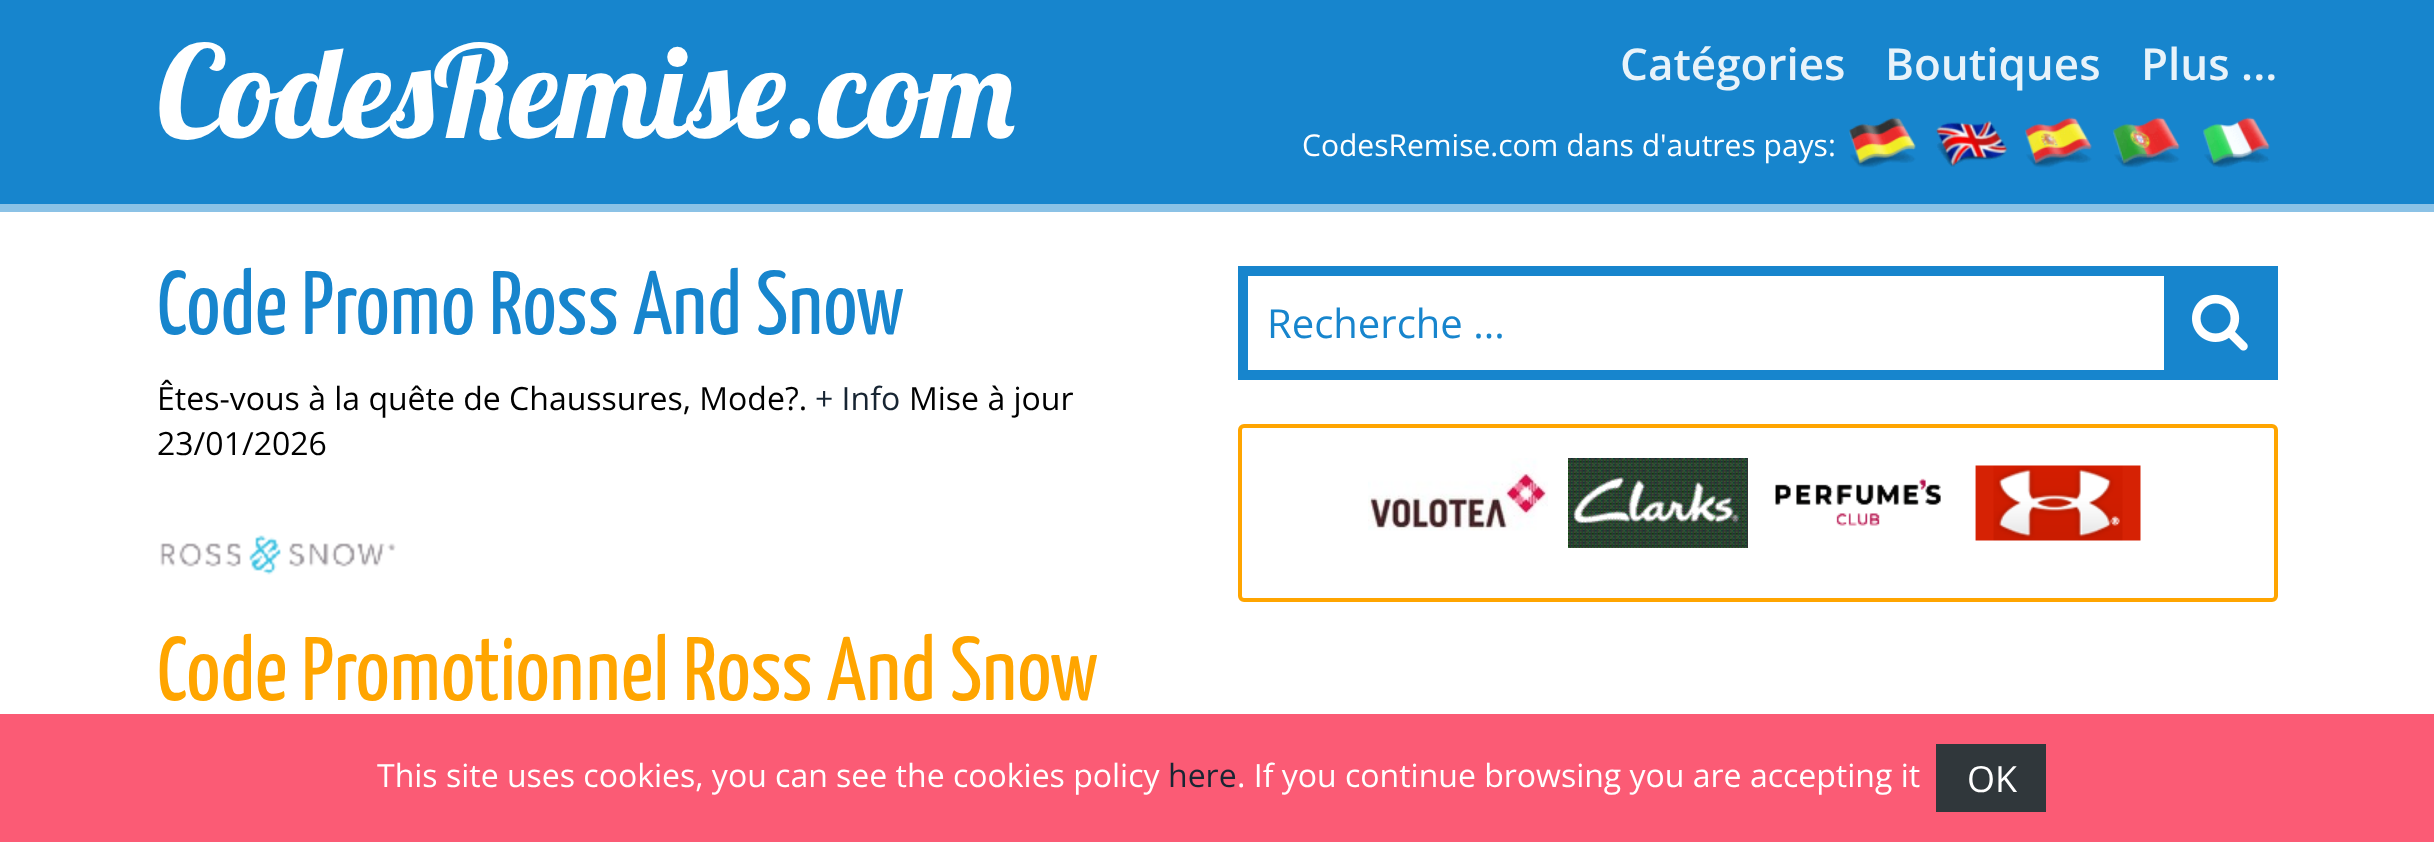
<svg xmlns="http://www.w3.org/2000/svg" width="2434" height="842">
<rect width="100%" height="100%" fill="#fff"/>
<rect y="204" width="2434" height="8" fill="#8bc2e6"/>
<rect width="2434" height="204" fill="#1785cd"/>
<text x="157" y="138" style="font-family:Lobster;font-size:128px;fill:#fff">CodesRemise.com</text>
<text x="1620" y="80" style="font-family:Open Sans;font-size:44px;font-weight:600;fill:#e8f3fa">Catégories</text>
<text x="1885" y="80" style="font-family:Open Sans;font-size:44px;font-weight:600;fill:#e8f3fa">Boutiques</text>
<text x="2141" y="80" style="font-family:Open Sans;font-size:44px;font-weight:600;fill:#e8f3fa">Plus ...</text>
<text x="1302" y="156" style="font-family:Open Sans;font-size:30px;fill:#fff">CodesRemise.com dans d'autres pays:</text>
<image x="1849" y="117" width="67" height="51" href="media/1.png"/>
<image x="1935" y="120" width="73" height="48" href="media/2.png"/>
<image x="2025" y="117" width="67" height="51" href="media/3.png"/>
<image x="2113" y="117" width="67" height="51" href="media/4.png"/>
<image x="2203" y="117" width="67" height="51" href="media/5.png"/>
<text x="157" y="334" style="font-family:Yanone Kaffeesatz;font-size:90px;fill:#1785cd">Code Promo Ross And Snow</text>
<text x="157" y="410" style="font-family:Open Sans;font-size:32px;fill:#000">Êtes-vous à la quête de Chaussures, Mode?.</text>
<text x="815" y="410" style="font-family:Open Sans;font-size:32px;fill:#172533">+ Info</text>
<text x="909" y="410" style="font-family:Open Sans;font-size:32px;fill:#000">Mise à jour</text>
<text x="157" y="455" style="font-family:Open Sans;font-size:32px;fill:#000">23/01/2026</text>
<image x="160" y="535" width="236" height="40" href="media/6.png"/>
<text x="157" y="700" style="font-family:Yanone Kaffeesatz;font-size:90px;fill:#ffa500">Code Promotionnel Ross And Snow</text>
<rect x="1238" y="266" width="1040" height="114" fill="#1785cd"/>
<rect x="1248" y="276" width="916" height="94" fill="#fff"/>
<text x="1267" y="338" style="font-family:Open Sans;font-size:40px;fill:#1785cd">Recherche ...</text>
<image x="2192" y="294" width="56" height="57" href="media/7.png"/>
<rect x="1240" y="426" width="1036" height="174" rx="4" fill="none" stroke="#ffa500" stroke-width="4"/>
<image x="1368" y="458" width="180" height="73" href="media/8.png"/>
<image x="1568" y="458" width="180" height="90" href="media/9.png"/>
<image x="1775" y="478" width="166" height="48" href="media/10.png"/>
<image x="1975" y="465" width="166" height="76" href="media/11.png"/>
<rect y="714" width="2434" height="128" fill="#fb5b75"/>
<text x="377" y="787" style="font-family:Open Sans;font-size:32px;fill:#fff">This site uses cookies, you can see the cookies policy</text>
<text x="1168" y="787" style="font-family:Open Sans;font-size:32px;fill:#172533">here</text>
<text x="1237" y="787" style="font-family:Open Sans;font-size:32px;fill:#fff">. If you continue browsing you are accepting it</text>
<rect x="1936" y="744" width="110" height="68" fill="#30373b"/>
<text x="1967" y="792" style="font-family:Open Sans;font-size:36px;fill:#fff">OK</text>
</svg>
